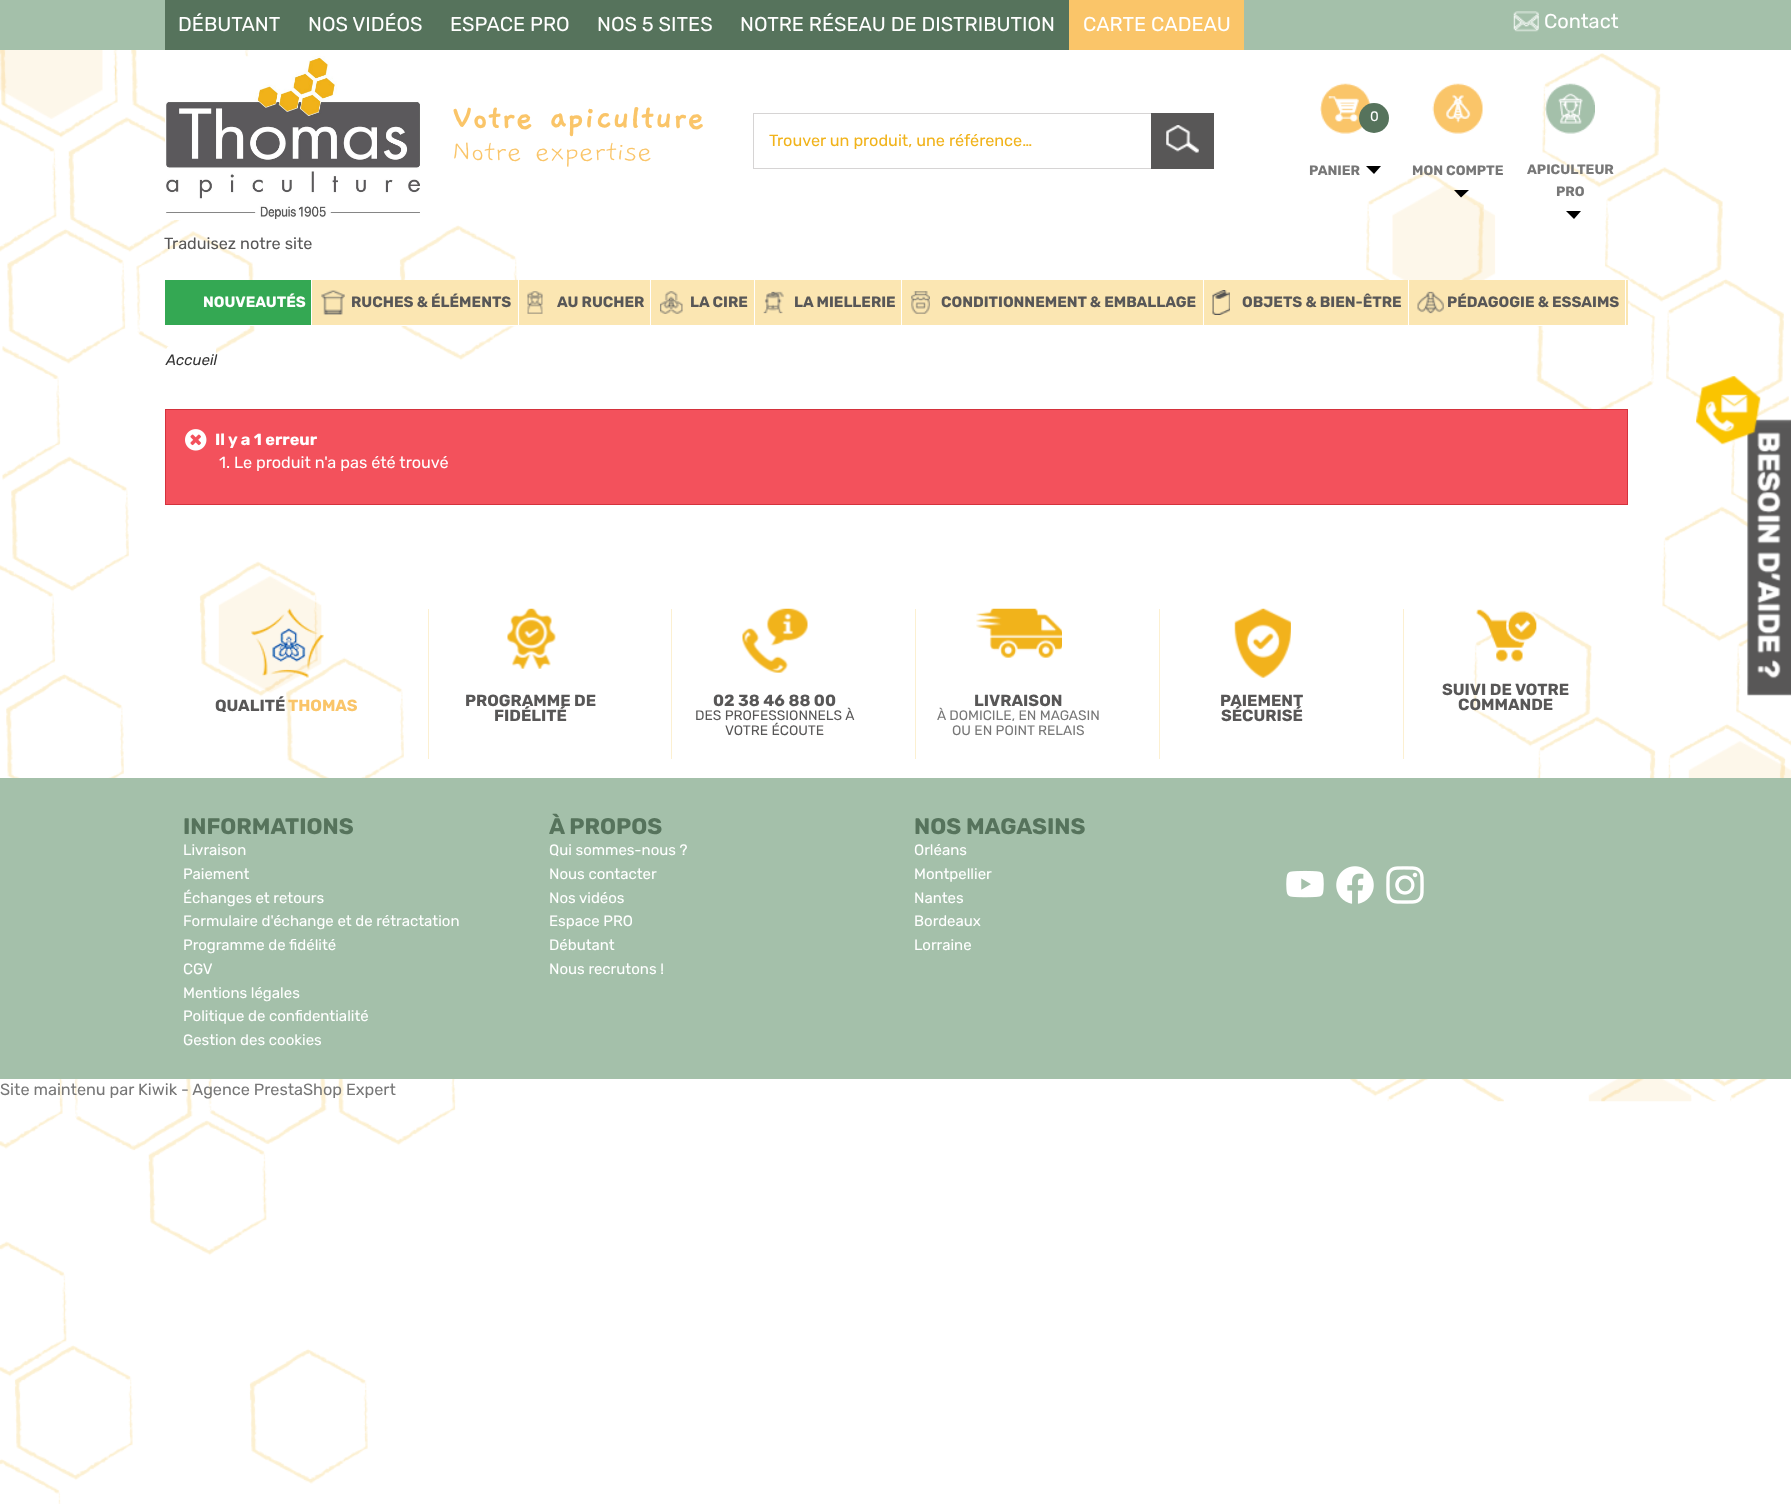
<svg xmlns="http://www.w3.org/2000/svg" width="1791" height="1504">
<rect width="100%" height="100%" fill="#fff"/>
<image x="0" y="50" width="518" height="1454" href="media/1.png"/>
<rect width="1791" height="50" fill="#a4c0aa"/>
<rect x="165" width="904" height="50" fill="#56735c"/>
<text x="178" y="31" style="font-family:Rubik;font-size:20px;fill:#fff">DÉBUTANT</text>
<text x="308" y="31" style="font-family:Rubik;font-size:20px;fill:#fff">NOS VIDÉOS</text>
<text x="450" y="31" style="font-family:Rubik;font-size:20px;fill:#fff">ESPACE PRO</text>
<text x="597" y="31" style="font-family:Rubik;font-size:20px;fill:#fff">NOS 5 SITES</text>
<text x="740" y="31" style="font-family:Rubik;font-size:20px;fill:#fff">NOTRE RÉSEAU DE DISTRIBUTION</text>
<rect x="1069" width="175" height="50" fill="#fac569"/>
<text x="1083" y="31" style="font-family:Rubik;font-size:20px;fill:#fff">CARTE CADEAU</text>
<image x="1513" y="11" width="26" height="21" href="media/2.png"/>
<text x="1544" y="28" style="font-family:Rubik;font-size:20px;fill:#fff">Contact</text>
<image x="1350" y="53" width="441" height="1049" href="media/3.png"/>
<image x="165" y="56" width="255" height="164" href="media/4.png"/>
<text x="452" y="128" style="font-family:Gaegu;font-size:37.5px;font-weight:bold;fill:#fac569">Votre apiculture</text>
<text x="452" y="160" style="font-family:Gaegu;font-size:31.25px;font-weight:300;fill:#fac569">Notre expertise</text>
<rect x="753.5" y="113.5" width="460" height="55" fill="none" stroke="#d6d4d4"/>
<text x="769" y="146" style="font-family:Rubik;font-size:16.25px;fill:#f1b31b">Trouver un produit, une référence…</text>
<rect x="1151" y="113" width="63" height="56" fill="#585757"/>
<image x="1166" y="125" width="33" height="28" href="media/5.png"/>
<image x="1320" y="83" width="50" height="51" href="media/6.png"/>
<circle cx="1374" cy="118" r="15" fill="#56735c"/>
<text x="1370" y="121" style="font-family:Rubik;font-size:13.75px;fill:#fff">0</text>
<text x="1309" y="175" style="font-family:Rubik;font-size:13.75px;font-weight:bold;fill:#777">PANIER</text>
<path d="M1366 166h15l-7 8z" fill="#000"/>
<image x="1432" y="83" width="51" height="51" href="media/7.png"/>
<text x="1412" y="175" style="font-family:Rubik;font-size:13.75px;font-weight:bold;fill:#777">MON COMPTE</text>
<path d="M1454 190h15l-8 7.5z" fill="#000"/>
<image x="1545" y="83" width="50" height="51" href="media/8.png"/>
<text x="1527" y="174" style="font-family:Rubik;font-size:13.75px;font-weight:bold;fill:#777">APICULTEUR</text>
<text x="1556" y="196" style="font-family:Rubik;font-size:13.75px;font-weight:bold;fill:#777">PRO</text>
<path d="M1566 211h15l-7 8z" fill="#000"/>
<text x="164" y="249" style="font-family:Rubik;font-size:16.25px;fill:#585757">Traduisez notre site</text>
<rect x="249" y="325" width="1294" height="1" fill="#fff"/>
<rect x="312" y="280" width="1316" height="45" fill="#fbe6b2"/>
<rect x="165" y="280" width="146" height="45" fill="#34a853"/>
<text x="203" y="307" style="font-family:Rubik;font-size:15px;font-weight:bold;fill:#fff">NOUVEAUTÉS</text>
<rect x="518" y="280" width="1" height="45" fill="#fff"/>
<image x="321" y="290" width="24" height="25" href="media/9.png"/>
<text x="351" y="307" style="font-family:Rubik;font-size:15px;font-weight:bold;fill:#585757">RUCHES &amp; ÉLÉMENTS</text>
<rect x="650" y="280" width="1" height="45" fill="#fff"/>
<image x="527" y="291" width="16" height="23" href="media/10.png"/>
<text x="557" y="307" style="font-family:Rubik;font-size:15px;font-weight:bold;fill:#585757">AU RUCHER</text>
<rect x="754" y="280" width="1" height="45" fill="#fff"/>
<image x="660" y="291" width="23" height="23" href="media/11.png"/>
<text x="690" y="307" style="font-family:Rubik;font-size:15px;font-weight:bold;fill:#585757">LA CIRE</text>
<rect x="901" y="280" width="1" height="45" fill="#fff"/>
<image x="763" y="291" width="21" height="23" href="media/12.png"/>
<text x="794" y="307" style="font-family:Rubik;font-size:15px;font-weight:bold;fill:#585757">LA MIELLERIE</text>
<rect x="1203" y="280" width="1" height="45" fill="#fff"/>
<image x="911" y="291" width="19" height="23" href="media/13.png"/>
<text x="941" y="307" style="font-family:Rubik;font-size:15px;font-weight:bold;fill:#585757">CONDITIONNEMENT &amp; EMBALLAGE</text>
<rect x="1408" y="280" width="1" height="45" fill="#fff"/>
<image x="1212" y="290" width="18" height="25" href="media/14.png"/>
<text x="1242" y="307" style="font-family:Rubik;font-size:15px;font-weight:bold;fill:#585757">OBJETS &amp; BIEN-ÊTRE</text>
<rect x="1625" y="280" width="1" height="45" fill="#fff"/>
<image x="1417" y="291" width="27" height="23" href="media/15.png"/>
<text x="1447" y="307" style="font-family:Rubik;font-size:15px;font-weight:bold;fill:#585757">PÉDAGOGIE &amp; ESSAIMS</text>
<path d="M170 346h46v32h-46c-2 0-4-2-4-4v-24c0-2 2-4 4-4z" fill="#fff"/>
<text x="166" y="365" style="font-family:Rubik;font-size:15px;font-weight:300;font-style:italic;fill:#333">Accueil</text>
<rect x="165.5" y="409.5" width="1462" height="95" fill="#f3515c" stroke="#d4323d"/>
<image x="185" y="429" width="22" height="22" href="media/16.png"/>
<text x="215" y="445" style="font-family:Rubik;font-size:16.25px;font-weight:bold;fill:#fff">Il y a 1 erreur</text>
<text x="219" y="468" style="font-family:Rubik;font-size:16.25px;fill:#fff">1. Le produit n'a pas été trouvé</text>
<image x="1747" y="419" width="44" height="277" href="media/18.png"/>
<image x="1696" y="376" width="65" height="69" href="media/17.png"/>
<image x="251" y="608" width="73" height="70" href="media/19.png"/>
<text x="215" y="711" style="font-family:Rubik;font-size:16.25px;font-weight:bold;fill:#585757">QUALITÉ</text>
<text x="288" y="711" style="font-family:Rubik;font-size:16.25px;font-weight:bold;fill:#fac569">THOMAS</text>
<rect x="428" y="609" width="1" height="150" fill="#fcf0d1"/>
<image x="507" y="608" width="49" height="61" href="media/20.png"/>
<text x="465" y="706" style="font-family:Rubik;font-size:16.25px;font-weight:bold;fill:#585757">PROGRAMME DE</text>
<text x="494" y="721" style="font-family:Rubik;font-size:16.25px;font-weight:bold;fill:#585757">FIDÉLITÉ</text>
<rect x="671" y="609" width="1" height="150" fill="#fcf0d1"/>
<image x="742" y="608" width="66" height="65" href="media/21.png"/>
<text x="713" y="706" style="font-family:Rubik;font-size:16.25px;font-weight:bold;fill:#585757">02 38 46 88 00</text>
<text x="695" y="720" style="font-family:Rubik;font-size:13.75px;fill:#585757">DES PROFESSIONNELS À</text>
<text x="725" y="735" style="font-family:Rubik;font-size:13.75px;fill:#585757">VOTRE ÉCOUTE</text>
<rect x="915" y="609" width="1" height="150" fill="#fcf0d1"/>
<image x="976" y="608" width="86" height="50" href="media/22.png"/>
<text x="974" y="706" style="font-family:Rubik;font-size:16.25px;font-weight:bold;fill:#585757">LIVRAISON</text>
<text x="937" y="720" style="font-family:Rubik;font-size:13.75px;fill:#777">À DOMICILE, EN MAGASIN</text>
<text x="952" y="735" style="font-family:Rubik;font-size:13.75px;fill:#777">OU EN POINT RELAIS</text>
<rect x="1159" y="609" width="1" height="150" fill="#fcf0d1"/>
<image x="1234" y="608" width="57" height="70" href="media/23.png"/>
<text x="1220" y="706" style="font-family:Rubik;font-size:16.25px;font-weight:bold;fill:#585757">PAIEMENT</text>
<text x="1221" y="721" style="font-family:Rubik;font-size:16.25px;font-weight:bold;fill:#585757">SÉCURISÉ</text>
<rect x="1403" y="609" width="1" height="150" fill="#fcf0d1"/>
<image x="1476" y="609" width="62" height="53" href="media/24.png"/>
<text x="1442" y="695" style="font-family:Rubik;font-size:16.25px;font-weight:bold;fill:#585757">SUIVI DE VOTRE</text>
<text x="1458" y="710" style="font-family:Rubik;font-size:16.25px;font-weight:bold;fill:#585757">COMMANDE</text>
<rect y="778" width="1791" height="301" fill="#a4c0aa"/>
<text x="183" y="834" style="font-family:Rubik;font-size:22.5px;font-weight:bold;fill:#56735c">INFORMATIONS</text>
<text x="183" y="855" style="font-family:Rubik;font-size:15px;fill:#fff">Livraison</text>
<text x="183" y="879" style="font-family:Rubik;font-size:15px;fill:#fff">Paiement</text>
<text x="183" y="903" style="font-family:Rubik;font-size:15px;fill:#fff">Échanges et retours</text>
<text x="183" y="926" style="font-family:Rubik;font-size:15px;fill:#fff">Formulaire d'échange et de rétractation</text>
<text x="183" y="950" style="font-family:Rubik;font-size:15px;fill:#fff">Programme de fidélité</text>
<text x="183" y="974" style="font-family:Rubik;font-size:15px;fill:#fff">CGV</text>
<text x="183" y="998" style="font-family:Rubik;font-size:15px;fill:#fff">Mentions légales</text>
<text x="183" y="1021" style="font-family:Rubik;font-size:15px;fill:#fff">Politique de confidentialité</text>
<text x="183" y="1045" style="font-family:Rubik;font-size:15px;fill:#fff">Gestion des cookies</text>
<text x="549" y="834" style="font-family:Rubik;font-size:22.5px;font-weight:bold;fill:#56735c">À PROPOS</text>
<text x="549" y="855" style="font-family:Rubik;font-size:15px;fill:#fff">Qui sommes-nous ?</text>
<text x="549" y="879" style="font-family:Rubik;font-size:15px;fill:#fff">Nous contacter</text>
<text x="549" y="903" style="font-family:Rubik;font-size:15px;fill:#fff">Nos vidéos</text>
<text x="549" y="926" style="font-family:Rubik;font-size:15px;fill:#fff">Espace PRO</text>
<text x="549" y="950" style="font-family:Rubik;font-size:15px;fill:#fff">Débutant</text>
<text x="549" y="974" style="font-family:Rubik;font-size:15px;fill:#fff">Nous recrutons !</text>
<text x="914" y="834" style="font-family:Rubik;font-size:22.5px;font-weight:bold;fill:#56735c">NOS MAGASINS</text>
<text x="914" y="855" style="font-family:Rubik;font-size:15px;fill:#fff">Orléans</text>
<text x="914" y="879" style="font-family:Rubik;font-size:15px;fill:#fff">Montpellier</text>
<text x="914" y="903" style="font-family:Rubik;font-size:15px;fill:#fff">Nantes</text>
<text x="914" y="926" style="font-family:Rubik;font-size:15px;fill:#fff">Bordeaux</text>
<text x="914" y="950" style="font-family:Rubik;font-size:15px;fill:#fff">Lorraine</text>
<image x="1286" y="870" width="38" height="28" href="media/25.png"/>
<image x="1336" y="866" width="38" height="38" href="media/26.png"/>
<image x="1386" y="866" width="38" height="38" href="media/27.png"/>
<text x="0" y="1095" style="font-family:Rubik;font-size:16.25px;fill:#777">Site maintenu par Kiwik - Agence PrestaShop Expert</text>
</svg>
